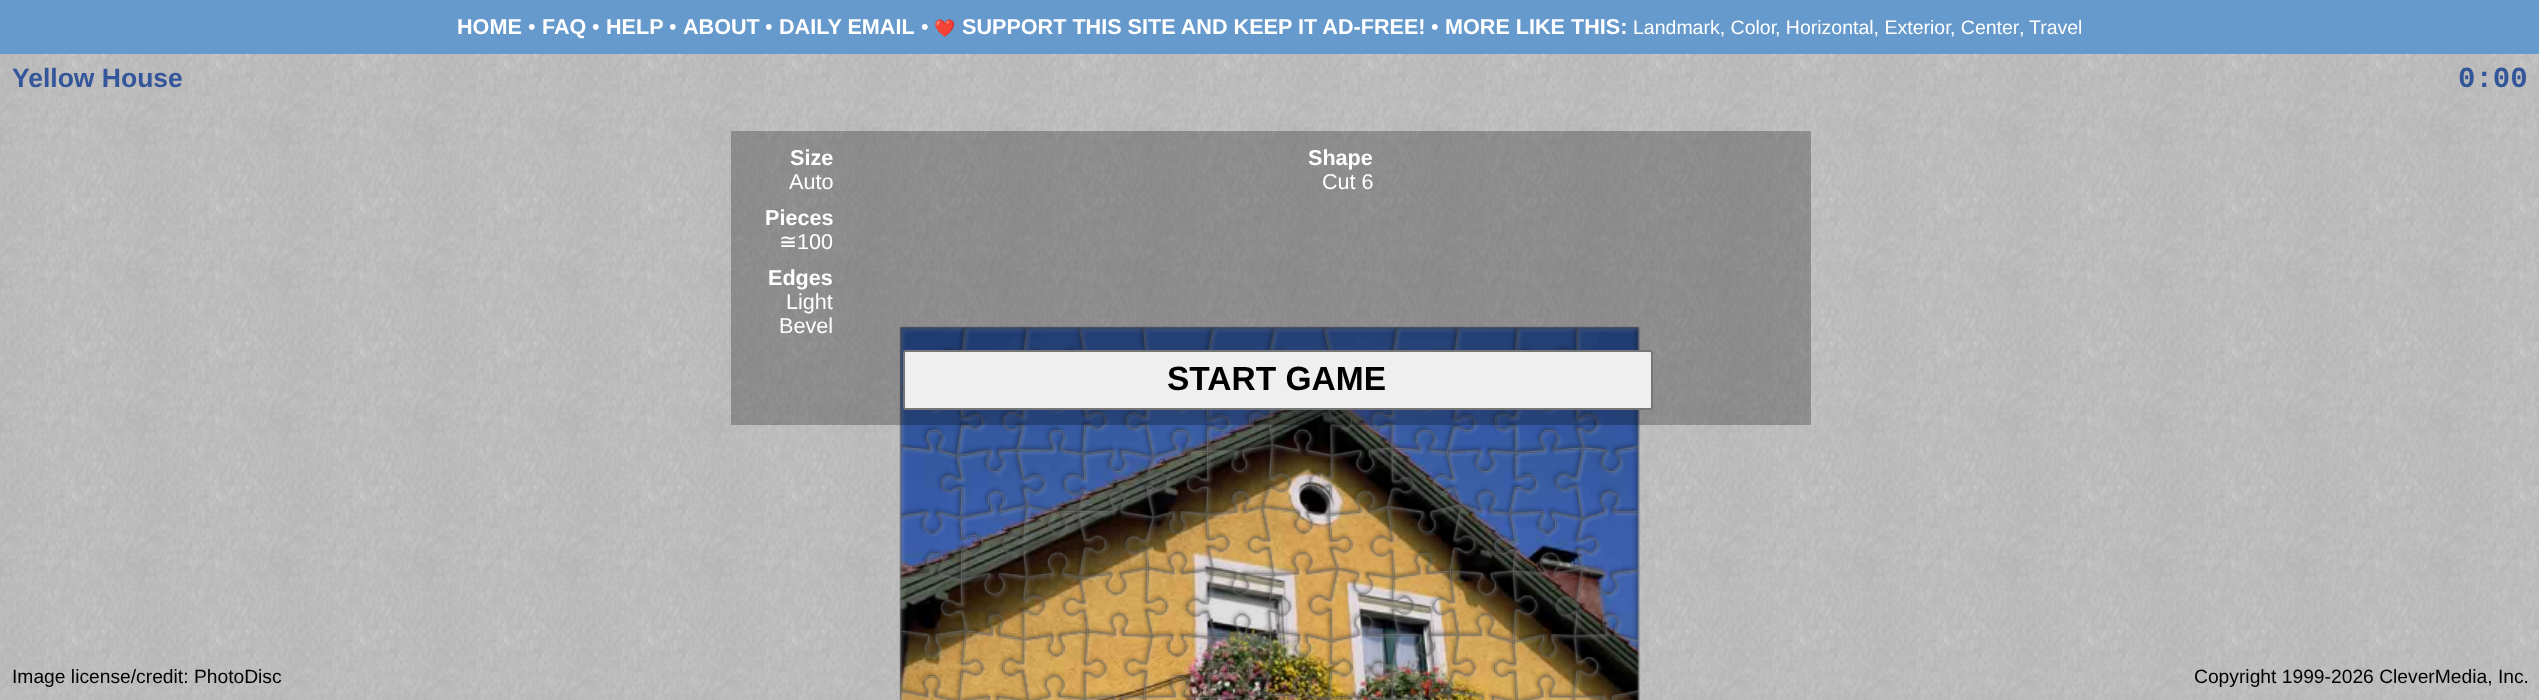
<svg xmlns="http://www.w3.org/2000/svg" width="2539" height="700">
<rect width="100%" height="100%" fill="#69c"/>
<text x="457" y="34" style="font-family:Liberation Sans;font-size:21.6px;font-weight:bold;fill:#fff">HOME</text>
<text x="528" y="34" style="font-family:Liberation Sans;font-size:21.6px;fill:#fff">•</text>
<text x="542" y="34" style="font-family:Liberation Sans;font-size:21.6px;font-weight:bold;fill:#fff">FAQ</text>
<text x="592" y="34" style="font-family:Liberation Sans;font-size:21.6px;fill:#fff">•</text>
<text x="606" y="34" style="font-family:Liberation Sans;font-size:21.6px;font-weight:bold;fill:#fff">HELP</text>
<text x="669" y="34" style="font-family:Liberation Sans;font-size:21.6px;fill:#fff">•</text>
<text x="683" y="34" style="font-family:Liberation Sans;font-size:21.6px;font-weight:bold;fill:#fff">ABOUT</text>
<text x="765" y="34" style="font-family:Liberation Sans;font-size:21.6px;fill:#fff">•</text>
<text x="779" y="34" style="font-family:Liberation Sans;font-size:21.6px;font-weight:bold;fill:#fff">DAILY EMAIL</text>
<text x="921" y="34" style="font-family:Liberation Sans;font-size:21.6px;fill:#fff">•</text>
<text x="934" y="34" style="font-family:Noto Color Emoji;font-size:17px;fill:#fff">❤️</text>
<text x="962" y="34" style="font-family:Liberation Sans;font-size:21.6px;font-weight:bold;fill:#fff">SUPPORT THIS SITE AND KEEP IT AD-FREE!</text>
<text x="1431" y="34" style="font-family:Liberation Sans;font-size:21.6px;fill:#fff">•</text>
<text x="1445" y="34" style="font-family:Liberation Sans;font-size:21.6px;font-weight:bold;fill:#fff">MORE LIKE THIS:</text>
<text x="1633" y="34" style="font-family:Liberation Sans;font-size:19.5px;fill:#fff">Landmark, Color</text>
<text x="1775" y="34" style="font-family:Liberation Sans;font-size:19.5px;fill:#fff">, Horizontal, Exterior</text>
<text x="1950" y="34" style="font-family:Liberation Sans;font-size:19.5px;fill:#fff">, Center</text>
<text x="2029" y="34" style="font-family:Liberation Sans;font-size:19.5px;fill:#fff">Travel</text>
<text x="2019" y="34" style="font-family:Liberation Sans;font-size:19.5px;fill:#fff">,</text>
<image x="0" y="54" width="2539" height="646" href="media/1.png"/>
<image x="899" y="326" width="68" height="66" href="media/2.png"/>
<image x="961" y="326" width="67" height="24" href="media/3.png"/>
<image x="1023" y="326" width="62" height="24" href="media/4.png"/>
<image x="1078" y="326" width="69" height="24" href="media/5.png"/>
<image x="1143" y="326" width="71" height="24" href="media/6.png"/>
<image x="1208" y="326" width="68" height="24" href="media/7.png"/>
<image x="1270" y="326" width="61" height="24" href="media/8.png"/>
<image x="1323" y="326" width="76" height="24" href="media/9.png"/>
<image x="1393" y="326" width="67" height="24" href="media/10.png"/>
<image x="1454" y="326" width="65" height="24" href="media/11.png"/>
<image x="1515" y="326" width="64" height="24" href="media/12.png"/>
<image x="1561" y="326" width="79" height="24" href="media/13.png"/>
<image x="899" y="389" width="84" height="68" href="media/14.png"/>
<image x="956" y="410" width="69" height="61" href="media/15.png"/>
<image x="1002" y="410" width="104" height="45" href="media/16.png"/>
<image x="1082" y="410" width="72" height="61" href="media/17.png"/>
<image x="1125" y="410" width="104" height="48" href="media/18.png"/>
<image x="1207" y="410" width="66" height="61" href="media/19.png"/>
<image x="1248" y="410" width="104" height="47" href="media/20.png"/>
<image x="1328" y="410" width="66" height="61" href="media/21.png"/>
<image x="1371" y="410" width="104" height="44" href="media/22.png"/>
<image x="1446" y="410" width="73" height="61" href="media/23.png"/>
<image x="1494" y="410" width="104" height="44" href="media/24.png"/>
<image x="1576" y="410" width="64" height="61" href="media/25.png"/>
<image x="899" y="429" width="65" height="104" href="media/26.png"/>
<image x="940" y="450" width="104" height="70" href="media/27.png"/>
<image x="1017" y="429" width="70" height="104" href="media/28.png"/>
<image x="1063" y="450" width="104" height="68" href="media/29.png"/>
<image x="1146" y="429" width="64" height="104" href="media/30.png"/>
<image x="1186" y="444" width="104" height="71" href="media/31.png"/>
<image x="1262" y="429" width="71" height="104" href="media/32.png"/>
<image x="1309" y="447" width="104" height="69" href="media/33.png"/>
<image x="1387" y="429" width="76" height="104" href="media/34.png"/>
<image x="1432" y="449" width="104" height="66" href="media/35.png"/>
<image x="1509" y="429" width="76" height="104" href="media/36.png"/>
<image x="1555" y="445" width="85" height="75" href="media/37.png"/>
<image x="899" y="511" width="84" height="70" href="media/38.png"/>
<image x="960" y="491" width="68" height="103" href="media/39.png"/>
<image x="1002" y="505" width="104" height="73" href="media/40.png"/>
<image x="1077" y="490" width="77" height="104" href="media/41.png"/>
<image x="1125" y="511" width="104" height="64" href="media/42.png"/>
<image x="1206" y="490" width="68" height="104" href="media/43.png"/>
<image x="1248" y="507" width="104" height="69" href="media/44.png"/>
<image x="1329" y="490" width="67" height="104" href="media/45.png"/>
<image x="1371" y="504" width="104" height="76" href="media/46.png"/>
<image x="1449" y="490" width="68" height="104" href="media/47.png"/>
<image x="1494" y="511" width="104" height="64" href="media/48.png"/>
<image x="1576" y="490" width="64" height="104" href="media/49.png"/>
<image x="899" y="552" width="68" height="104" href="media/50.png"/>
<image x="940" y="573" width="104" height="68" href="media/51.png"/>
<image x="1023" y="552" width="65" height="104" href="media/52.png"/>
<image x="1063" y="568" width="104" height="69" href="media/53.png"/>
<image x="1145" y="552" width="71" height="104" href="media/54.png"/>
<image x="1186" y="568" width="104" height="72" href="media/55.png"/>
<image x="1268" y="552" width="71" height="104" href="media/56.png"/>
<image x="1309" y="568" width="104" height="75" href="media/57.png"/>
<image x="1391" y="552" width="69" height="104" href="media/58.png"/>
<image x="1432" y="570" width="104" height="73" href="media/59.png"/>
<image x="1513" y="552" width="70" height="104" href="media/60.png"/>
<image x="1555" y="567" width="85" height="76" href="media/61.png"/>
<image x="899" y="630" width="84" height="70" href="media/62.png"/>
<image x="958" y="613" width="72" height="87" href="media/63.png"/>
<image x="1002" y="631" width="104" height="69" href="media/64.png"/>
<image x="1084" y="613" width="69" height="87" href="media/65.png"/>
<image x="1125" y="634" width="104" height="66" href="media/66.png"/>
<image x="1207" y="613" width="64" height="87" href="media/67.png"/>
<image x="1248" y="631" width="104" height="69" href="media/68.png"/>
<image x="1328" y="613" width="72" height="87" href="media/69.png"/>
<image x="1371" y="634" width="104" height="66" href="media/70.png"/>
<image x="1447" y="613" width="72" height="87" href="media/71.png"/>
<image x="1494" y="634" width="104" height="66" href="media/72.png"/>
<image x="1573" y="613" width="67" height="87" href="media/73.png"/>
<image x="899" y="675" width="53" height="25" href="media/74.png"/>
<image x="966" y="695" width="53" height="5" href="media/75.png"/>
<image x="1036" y="675" width="51" height="25" href="media/76.png"/>
<image x="1084" y="695" width="61" height="5" href="media/77.png"/>
<image x="1144" y="675" width="67" height="25" href="media/78.png"/>
<image x="1209" y="693" width="56" height="7" href="media/79.png"/>
<image x="1263" y="675" width="67" height="25" href="media/80.png"/>
<image x="1328" y="695" width="65" height="5" href="media/81.png"/>
<image x="1391" y="675" width="60" height="25" href="media/82.png"/>
<image x="1447" y="690" width="61" height="10" href="media/83.png"/>
<image x="1526" y="675" width="50" height="25" href="media/84.png"/>
<image x="1573" y="690" width="67" height="10" href="media/85.png"/>
<text x="12" y="87" style="font-family:Liberation Sans;font-size:26.5px;font-weight:bold;fill:#359">Yellow House</text>
<text x="2458" y="87" style="font-family:Liberation Mono;font-size:29px;font-weight:bold;fill:#359">0:00</text>
<rect x="731" y="131" width="1080" height="294" fill="#00000040"/>
<text x="790" y="165" style="font-family:Liberation Sans;font-size:21.6px;font-weight:bold;fill:#fff">Size</text>
<text x="789" y="189" style="font-family:Liberation Sans;font-size:21.6px;fill:#fff">Auto</text>
<text x="765" y="225" style="font-family:Liberation Sans;font-size:21.6px;font-weight:bold;fill:#fff">Pieces</text>
<text x="779" y="249" style="font-family:DejaVu Sans;font-size:21.6px;fill:#fff">≅</text>
<text x="797" y="249" style="font-family:Liberation Sans;font-size:21.6px;fill:#fff">100</text>
<text x="768" y="285" style="font-family:Liberation Sans;font-size:21.6px;font-weight:bold;fill:#fff">Edges</text>
<text x="786" y="309" style="font-family:Liberation Sans;font-size:21.6px;fill:#fff">Light</text>
<text x="779" y="333" style="font-family:Liberation Sans;font-size:21.6px;fill:#fff">Bevel</text>
<text x="1308" y="165" style="font-family:Liberation Sans;font-size:21.6px;font-weight:bold;fill:#fff">Shape</text>
<text x="1322" y="189" style="font-family:Liberation Sans;font-size:21.6px;fill:#fff">Cut 6</text>
<rect x="904" y="351" width="748" height="58" rx="2" fill="#efefef" stroke="#767676" stroke-width="2"/>
<text x="1167" y="390" style="font-family:Liberation Sans;font-size:33.5px;font-weight:bold;fill:#000">START GAME</text>
<text x="12" y="683" style="font-family:Liberation Sans;font-size:19.25px;fill:#000">Image license/credit: PhotoDisc</text>
<text x="2194" y="683" style="font-family:Liberation Sans;font-size:19.25px;fill:#000">Copyright 1999-2026 CleverMedia, Inc.</text>
</svg>
